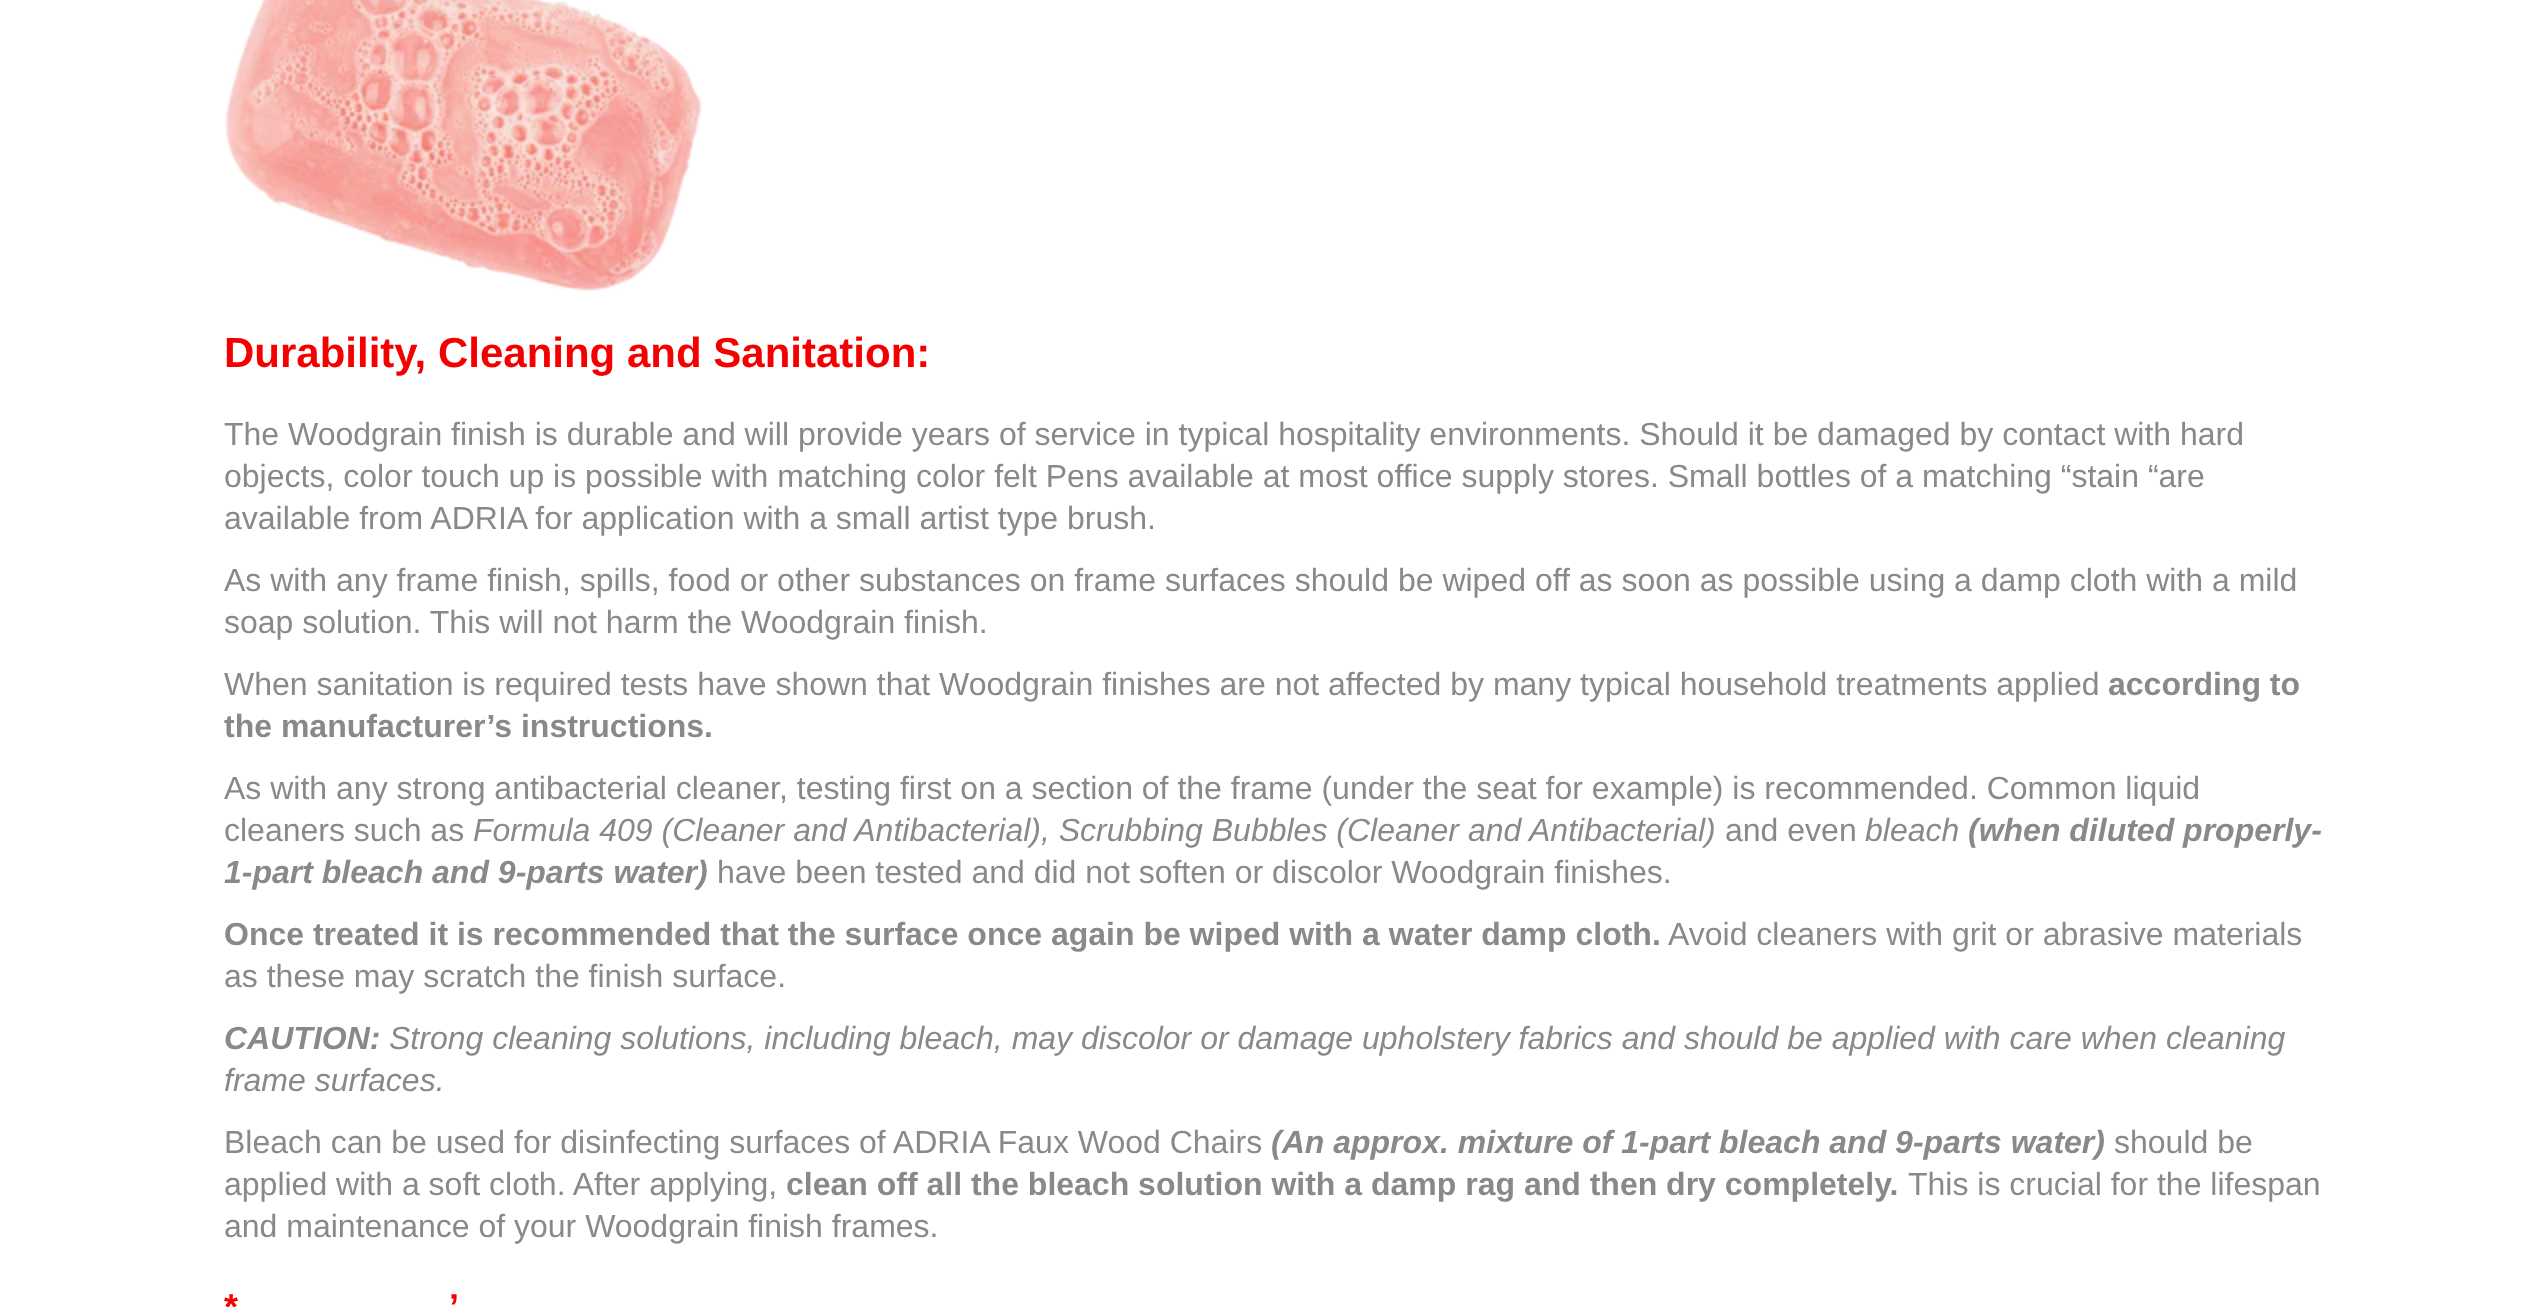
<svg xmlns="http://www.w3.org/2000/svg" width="2548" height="1307">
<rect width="100%" height="100%" fill="#fff"/>
<image x="225" y="0" width="478" height="291" href="media/1.png"/>
<text x="224" y="367" style="font-family:Liberation Sans;font-size:42px;font-weight:bold;fill:#f50001">Durability, Cleaning and Sanitation:</text>
<text x="224" y="445" style="font-family:Liberation Sans;font-size:32px;fill:#898989">The Woodgrain finish is durable and will provide years of service in typical hospitality environments. Should it be damaged by contact with hard</text>
<text x="224" y="487" style="font-family:Liberation Sans;font-size:32px;fill:#898989">objects, color touch up is possible with matching color felt Pens available at most office supply stores. Small bottles of a matching “stain “are</text>
<text x="224" y="529" style="font-family:Liberation Sans;font-size:32px;fill:#898989">available from ADRIA for application with a small artist type brush.</text>
<text x="224" y="591" style="font-family:Liberation Sans;font-size:32px;fill:#898989">As with any frame finish, spills, food or other substances on frame surfaces should be wiped off as soon as possible using a damp cloth with a mild</text>
<text x="224" y="633" style="font-family:Liberation Sans;font-size:32px;fill:#898989">soap solution. This will not harm the Woodgrain finish.</text>
<text x="224" y="695" style="font-family:Liberation Sans;font-size:32px;fill:#898989">When sanitation is required tests have shown that Woodgrain finishes are not affected by many typical household treatments applied</text>
<text x="2108" y="695" style="font-family:Liberation Sans;font-size:32px;font-weight:bold;fill:#898989">according to</text>
<text x="224" y="737" style="font-family:Liberation Sans;font-size:32px;font-weight:bold;fill:#898989">the manufacturer’s instructions.</text>
<text x="224" y="799" style="font-family:Liberation Sans;font-size:32px;fill:#898989">As with any strong antibacterial cleaner, testing first on a section of the frame (under the seat for example) is recommended. Common liquid</text>
<text x="224" y="841" style="font-family:Liberation Sans;font-size:32px;fill:#898989">cleaners such as</text>
<text x="473" y="841" style="font-family:Liberation Sans;font-size:32px;font-style:italic;fill:#898989">Formula 409 (Cleaner and Antibacterial), Scrubbing Bubbles (Cleaner and Antibacterial)</text>
<text x="1725" y="841" style="font-family:Liberation Sans;font-size:32px;fill:#898989">and even</text>
<text x="1865" y="841" style="font-family:Liberation Sans;font-size:32px;font-style:italic;fill:#898989">bleach</text>
<text x="1968" y="841" style="font-family:Liberation Sans;font-size:32px;font-weight:bold;font-style:italic;fill:#898989">(when diluted properly-</text>
<text x="224" y="883" style="font-family:Liberation Sans;font-size:32px;font-weight:bold;font-style:italic;fill:#898989">1-part bleach and 9-parts water)</text>
<text x="717" y="883" style="font-family:Liberation Sans;font-size:32px;fill:#898989">have been tested and did not soften or discolor Woodgrain finishes.</text>
<text x="224" y="945" style="font-family:Liberation Sans;font-size:32px;font-weight:bold;fill:#898989">Once treated it is recommended that the surface once again be wiped with a water damp cloth.</text>
<text x="1668" y="945" style="font-family:Liberation Sans;font-size:32px;fill:#898989">Avoid cleaners with grit or abrasive materials</text>
<text x="224" y="987" style="font-family:Liberation Sans;font-size:32px;fill:#898989">as these may scratch the finish surface.</text>
<text x="224" y="1049" style="font-family:Liberation Sans;font-size:32px;font-weight:bold;font-style:italic;fill:#898989">CAUTION:</text>
<text x="389" y="1049" style="font-family:Liberation Sans;font-size:32px;font-style:italic;fill:#898989">Strong cleaning solutions, including bleach, may discolor or damage upholstery fabrics and should be applied with care when cleaning</text>
<text x="224" y="1091" style="font-family:Liberation Sans;font-size:32px;font-style:italic;fill:#898989">frame surfaces.</text>
<text x="224" y="1153" style="font-family:Liberation Sans;font-size:32px;fill:#898989">Bleach can be used for disinfecting surfaces of ADRIA Faux Wood Chairs</text>
<text x="1271" y="1153" style="font-family:Liberation Sans;font-size:32px;font-weight:bold;font-style:italic;fill:#898989">(An approx. mixture of 1-part bleach and 9-parts water)</text>
<text x="2114" y="1153" style="font-family:Liberation Sans;font-size:32px;fill:#898989">should be</text>
<text x="224" y="1195" style="font-family:Liberation Sans;font-size:32px;fill:#898989">applied with a soft cloth. After applying,</text>
<text x="786" y="1195" style="font-family:Liberation Sans;font-size:32px;font-weight:bold;fill:#898989">clean off all the bleach solution with a damp rag and then dry completely.</text>
<text x="1908" y="1195" style="font-family:Liberation Sans;font-size:32px;fill:#898989">This is crucial for the lifespan</text>
<text x="224" y="1237" style="font-family:Liberation Sans;font-size:32px;fill:#898989">and maintenance of your Woodgrain finish frames.</text>
<text x="224" y="1319" style="font-family:Liberation Sans;font-size:36px;font-weight:bold;fill:#f50001">*</text>
<text x="449" y="1319" style="font-family:Liberation Sans;font-size:36px;font-weight:bold;fill:#f50001">’</text>
</svg>
